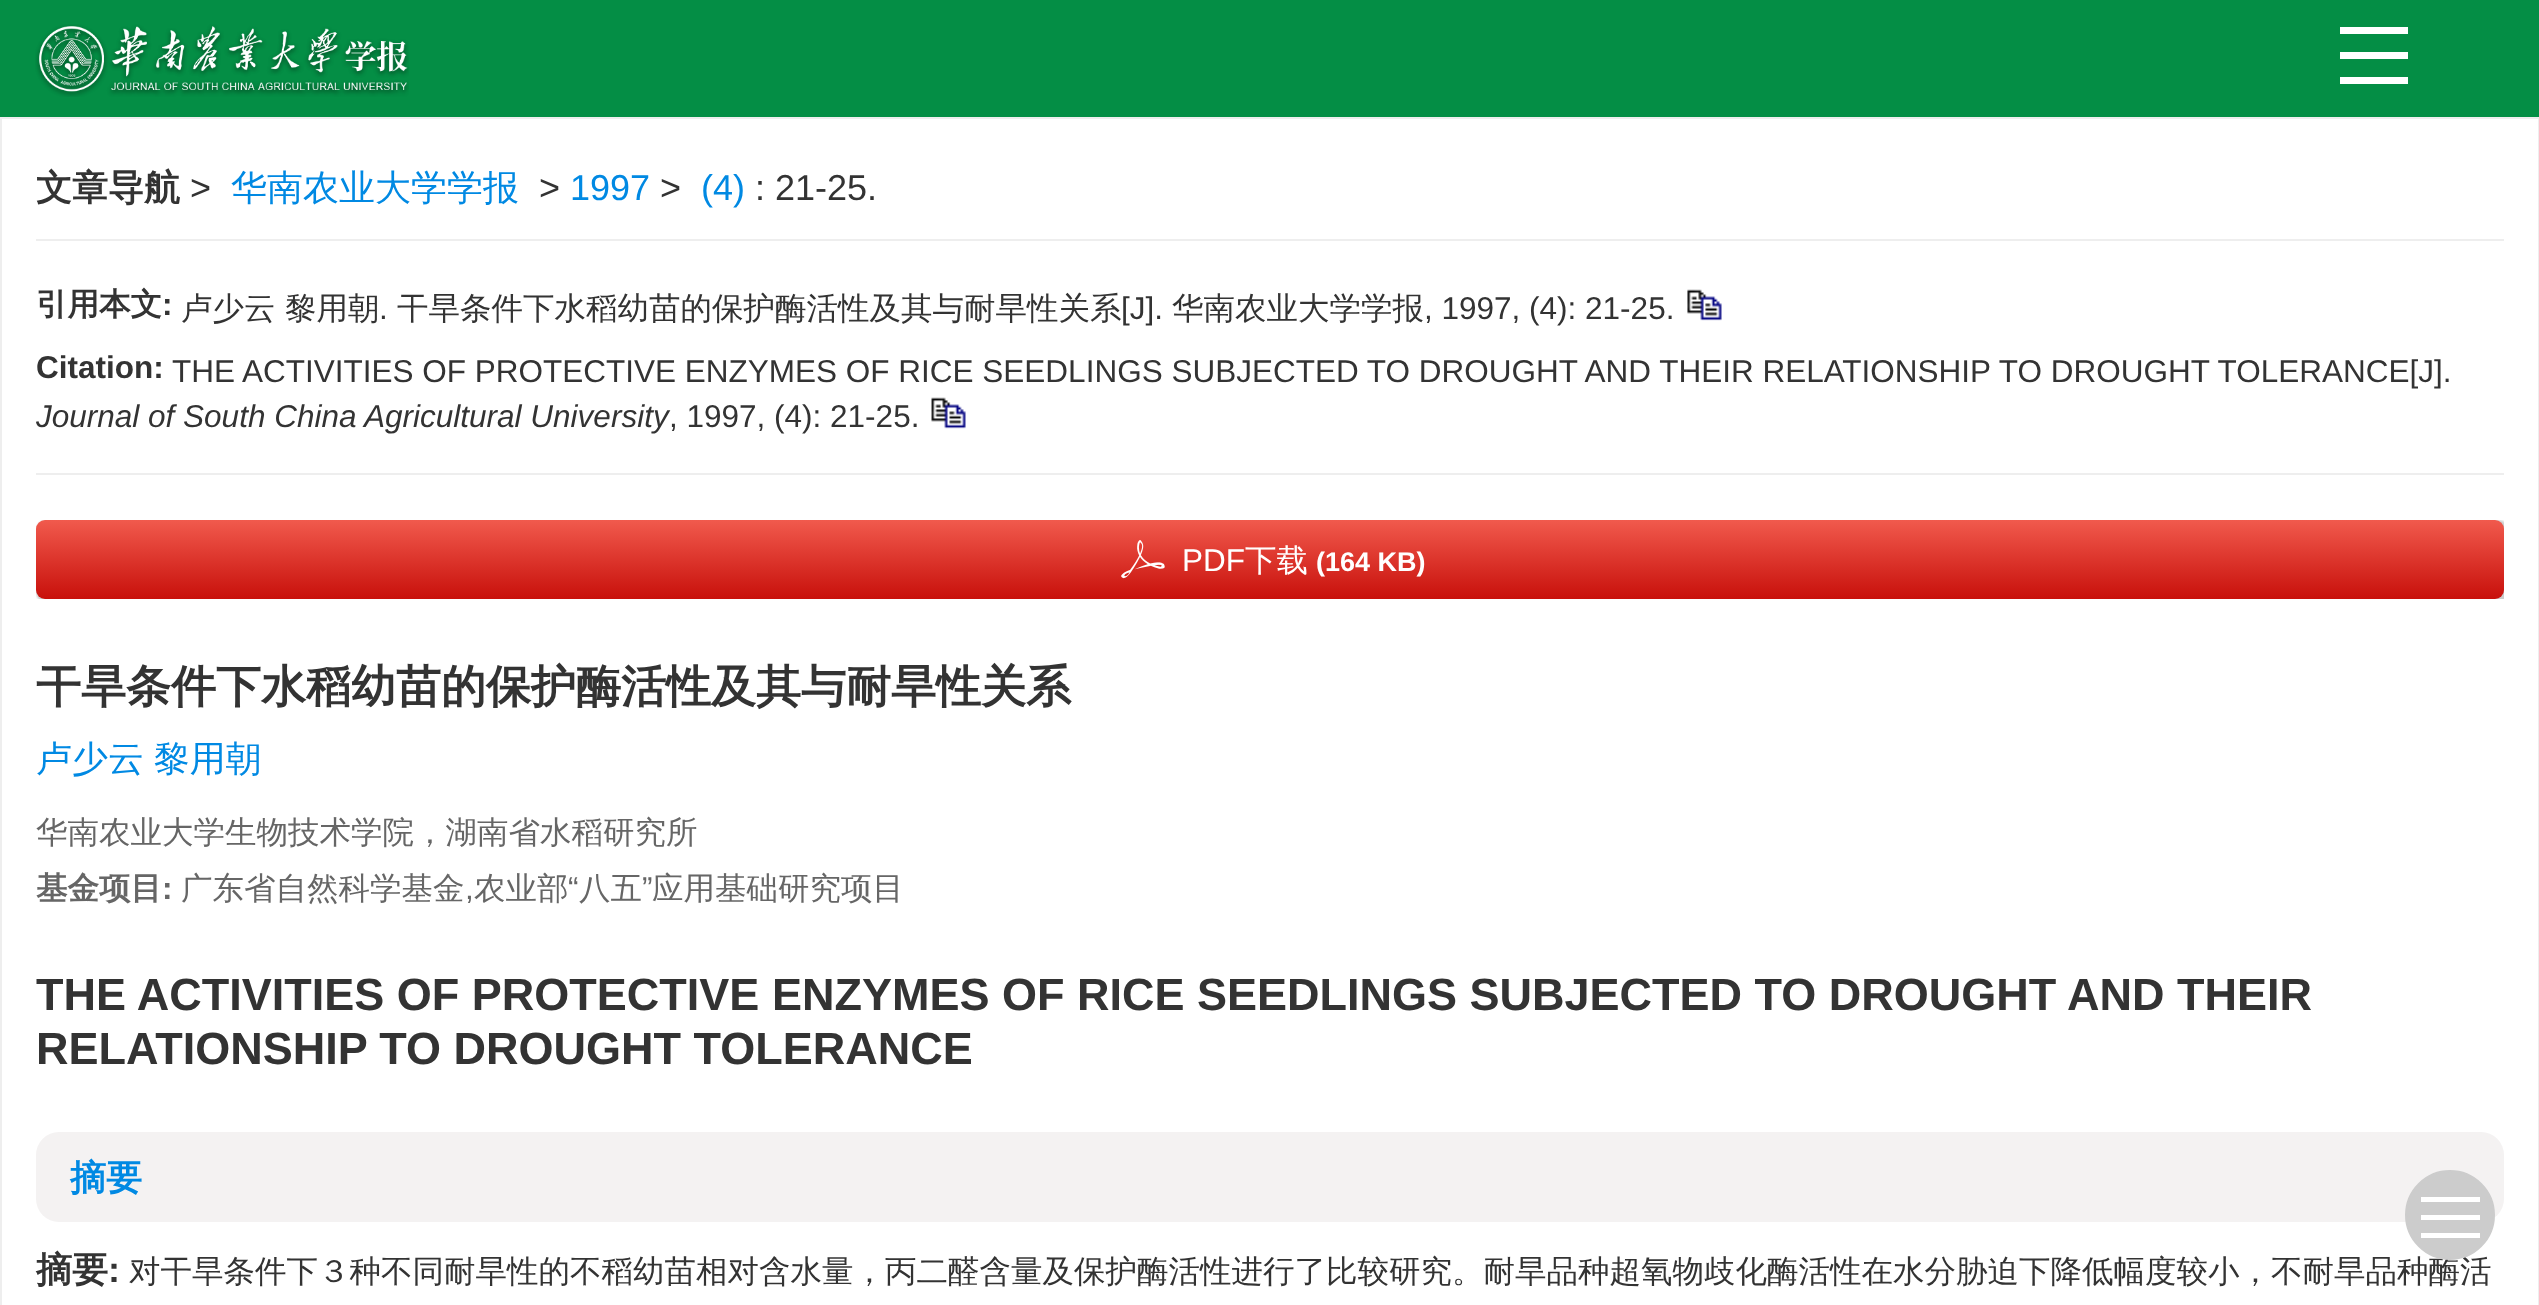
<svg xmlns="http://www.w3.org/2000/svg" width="2539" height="1305">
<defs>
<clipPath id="clip1"><rect x="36" y="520" width="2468" height="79"/></clipPath>
<linearGradient id="g1" gradientUnits="userSpaceOnUse" x1="1270" y1="520" x2="1270" y2="599"><stop offset="0" stop-color="#f15a4d"/><stop offset="1" stop-color="#c8100b"/></linearGradient>
</defs>
<rect width="100%" height="100%" fill="#048e45"/>
<image x="35" y="24" width="374" height="73" href="media/1.png"/>
<rect x="2340" y="27" width="68" height="7" fill="#fff"/>
<rect x="2340" y="52" width="68" height="7" fill="#fff"/>
<rect x="2340" y="77" width="68" height="7" fill="#fff"/>
<rect x="1" y="118" width="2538" height="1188" fill="#fff" stroke="#eee" stroke-width="2"/>
<rect x="36" y="239" width="2468" height="2" fill="#eee"/>
<text x="36" y="200" style="font-family:WenQuanYi Zen Hei;font-size:36px;font-weight:bold;fill:#333">文章导航</text>
<text x="190" y="200" style="font-family:Liberation Sans;font-size:36px;fill:#333">&gt;</text>
<text x="231" y="200" style="font-family:WenQuanYi Zen Hei;font-size:36px;font-weight:500;fill:#0089e3">华南农业大学学报</text>
<text x="539" y="200" style="font-family:Liberation Sans;font-size:36px;fill:#333">&gt;</text>
<text x="570" y="200" style="font-family:Liberation Sans;font-size:36px;fill:#0089e3">1997</text>
<text x="660" y="200" style="font-family:Liberation Sans;font-size:36px;fill:#333">&gt;</text>
<text x="701" y="200" style="font-family:Liberation Sans;font-size:36px;fill:#0089e3">(4)</text>
<text x="755" y="200" style="font-family:Liberation Sans;font-size:36px;fill:#333">: 21-25.</text>
<rect x="36" y="473" width="2468" height="2" fill="#eee"/>
<text x="36" y="315" style="font-family:WenQuanYi Zen Hei;font-size:31.5px;font-weight:bold;fill:#333">引用本文</text>
<text x="162" y="315" style="font-family:Liberation Sans;font-size:31.5px;font-weight:bold;fill:#333">:</text>
<text x="181" y="319" style="font-family:WenQuanYi Zen Hei;font-size:31.5px;font-weight:500;fill:#333">卢少云</text>
<text x="285" y="319" style="font-family:WenQuanYi Zen Hei;font-size:31.5px;font-weight:500;fill:#333">黎用朝</text>
<text x="379" y="319" style="font-family:Liberation Sans;font-size:31.5px;fill:#333">.</text>
<text x="397" y="319" style="font-family:WenQuanYi Zen Hei;font-size:31.5px;font-weight:500;fill:#333">干旱条件下水稻幼苗的保护酶活性及其与耐旱性关系</text>
<text x="1121" y="319" style="font-family:Liberation Sans;font-size:31.5px;fill:#333">[J].</text>
<text x="1172" y="319" style="font-family:WenQuanYi Zen Hei;font-size:31.5px;font-weight:500;fill:#333">华南农业大学学报</text>
<text x="1424" y="319" style="font-family:Liberation Sans;font-size:31.5px;fill:#333">, 1997, (4): 21-25.</text>
<image x="1687" y="289" width="35" height="32" href="media/2.png"/>
<text x="36" y="378" style="font-family:Liberation Sans;font-size:31.5px;font-weight:bold;fill:#333">Citation:</text>
<text x="172" y="382" style="font-family:Liberation Sans;font-size:31.5px;fill:#333">THE ACTIVITIES OF PROTECTIVE ENZYMES OF RICE SEEDLINGS SUBJECTED TO DROUGHT AND THEIR RELATIONSHIP TO DROUGHT TOLERANCE[J].</text>
<text x="36" y="427" style="font-family:Liberation Sans;font-size:31.5px;font-style:italic;fill:#333">Journal of South China Agricultural University</text>
<text x="669" y="427" style="font-family:Liberation Sans;font-size:31.5px;fill:#333">, 1997, (4): 21-25.</text>
<image x="931" y="397" width="35" height="32" href="media/3.png"/>
<g clip-path="url(#clip1)">
<rect x="36" y="520" width="2473" height="83" rx="11" fill="#00000033" filter="blur(1px)"/>
</g>
<rect x="36" y="520" width="2468" height="79" rx="9" fill="url(#g1)"/>
<image x="1121" y="540" width="44" height="39" href="media/4.png"/>
<text x="1182" y="571" style="font-family:Liberation Sans;font-size:31.5px;fill:#fff">PDF</text>
<text x="1245" y="571" style="font-family:WenQuanYi Zen Hei;font-size:31.5px;font-weight:500;fill:#fff">下载</text>
<text x="1316" y="571" style="font-family:Liberation Sans;font-size:27px;font-weight:bold;fill:#fff">(164 KB)</text>
<text x="36" y="702" style="font-family:WenQuanYi Zen Hei;font-size:45px;font-weight:bold;fill:#333">干旱条件下水稻幼苗的保护酶活性及其与耐旱性关系</text>
<text x="36" y="771" word-spacing="-1" style="font-family:WenQuanYi Zen Hei;font-size:36px;font-weight:500;fill:#0089e3">卢少云 黎用朝</text>
<text x="36" y="843" style="font-family:WenQuanYi Zen Hei;font-size:31.5px;font-weight:500;fill:#666">华南农业大学生物技术学院，湖南省水稻研究所</text>
<text x="36" y="899" style="font-family:WenQuanYi Zen Hei;font-size:31.5px;font-weight:bold;fill:#666">基金项目</text>
<text x="181" y="899" style="font-family:WenQuanYi Zen Hei;font-size:31.5px;font-weight:500;fill:#666">广东省自然科学基金</text>
<text x="474" y="899" style="font-family:WenQuanYi Zen Hei;font-size:31.5px;font-weight:500;fill:#666">农业部</text>
<text x="568" y="899" style="font-family:Liberation Sans;font-size:31.5px;fill:#666">“</text>
<text x="579" y="899" style="font-family:WenQuanYi Zen Hei;font-size:31.5px;font-weight:500;fill:#666">八五</text>
<text x="642" y="899" style="font-family:Liberation Sans;font-size:31.5px;fill:#666">”</text>
<text x="652" y="899" style="font-family:WenQuanYi Zen Hei;font-size:31.5px;font-weight:500;fill:#666">应用基础研究项目</text>
<text x="162" y="899" style="font-family:Liberation Sans;font-size:31.5px;font-weight:bold;fill:#666">:</text>
<text x="465" y="899" style="font-family:Liberation Sans;font-size:31.5px;fill:#666">,</text>
<text x="36" y="1010" style="font-family:Liberation Sans;font-size:45px;font-weight:bold;fill:#333">THE ACTIVITIES OF PROTECTIVE ENZYMES OF RICE SEEDLINGS SUBJECTED TO DROUGHT AND THEIR</text>
<text x="36" y="1064" style="font-family:Liberation Sans;font-size:45px;font-weight:bold;fill:#333">RELATIONSHIP TO DROUGHT TOLERANCE</text>
<rect x="36" y="1132" width="2468" height="90" rx="23" fill="#f4f2f2"/>
<text x="70" y="1190" style="font-family:WenQuanYi Zen Hei;font-size:36px;font-weight:bold;fill:#0089e3">摘要</text>
<text x="36" y="1282" style="font-family:WenQuanYi Zen Hei;font-size:36px;font-weight:bold;fill:#333">摘要</text>
<text x="108" y="1282" style="font-family:Liberation Sans;font-size:36px;font-weight:bold;fill:#333">:</text>
<text x="129" y="1282" style="font-family:WenQuanYi Zen Hei;font-size:31.5px;font-weight:500;fill:#333">对干旱条件下３种不同耐旱性的不稻幼苗相对含水量，丙二醛含量及保护酶活性进行了比较研究。耐旱品种超氧物歧化酶活性在水分胁迫下降低幅度较小，不耐旱品种酶活</text>
<circle cx="2450" cy="1215" r="44" fill="#ccc" stroke="#ccc" stroke-width="2"/>
<rect x="2421" y="1197" width="59" height="5" fill="#fff"/>
<rect x="2421" y="1215" width="59" height="5" fill="#fff"/>
<rect x="2421" y="1233" width="59" height="5" fill="#fff"/>
</svg>
